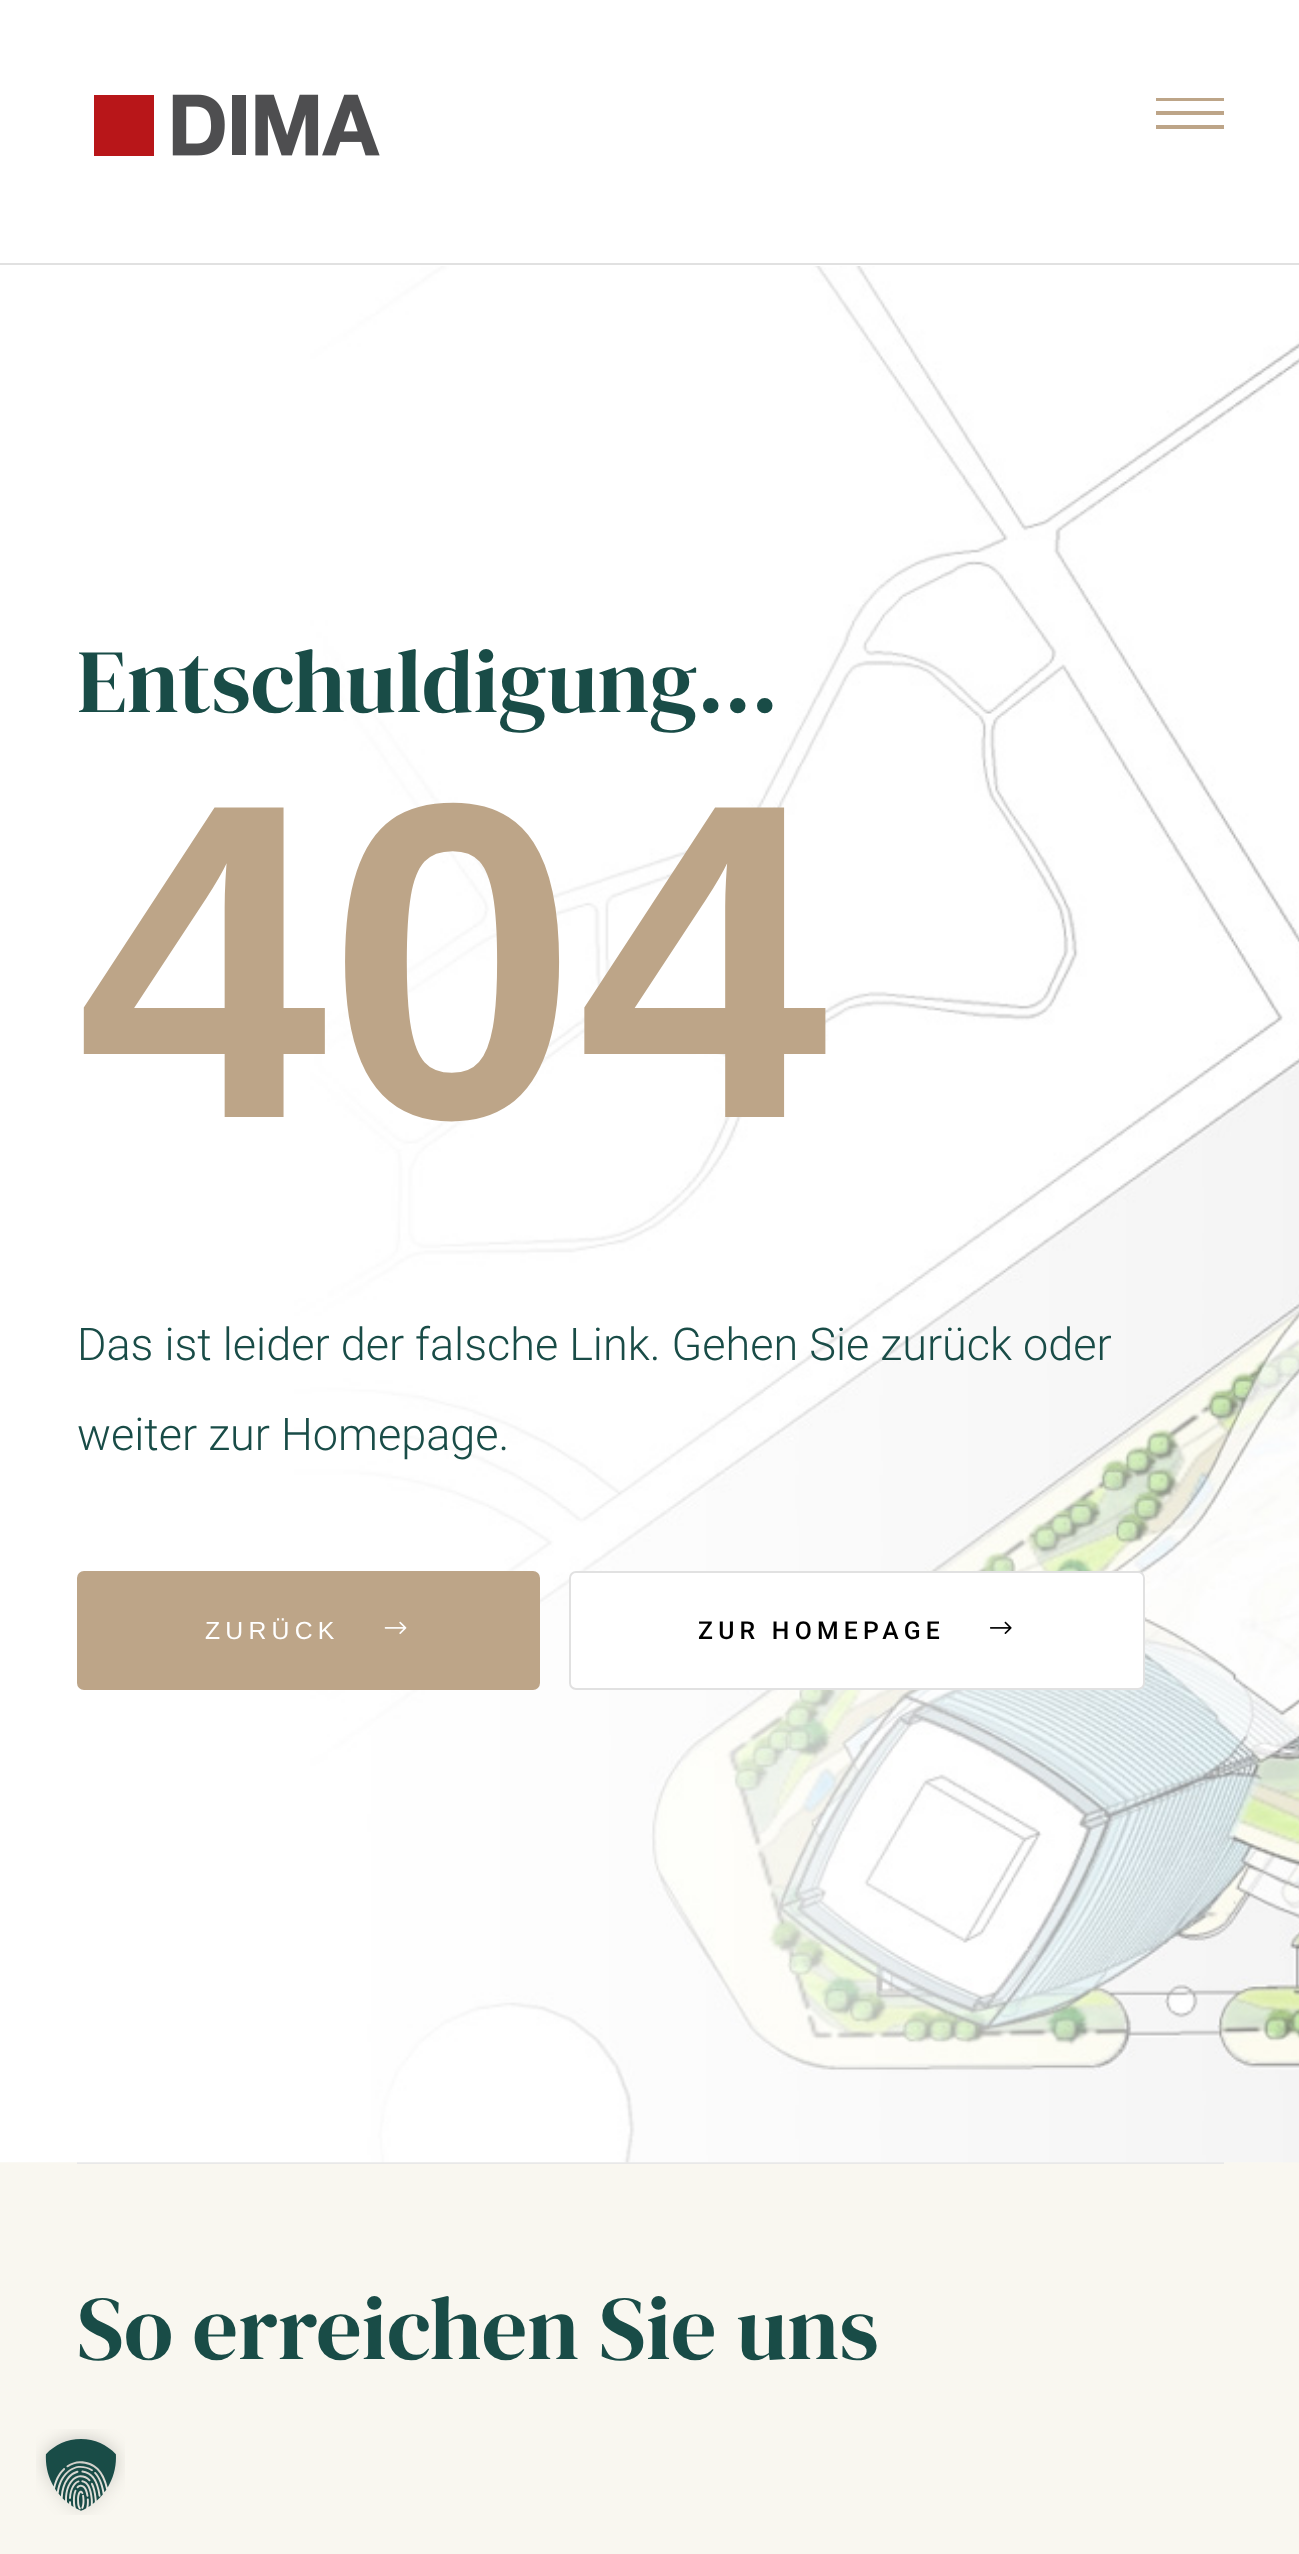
<svg xmlns="http://www.w3.org/2000/svg" width="1299" height="2554">
<rect width="100%" height="100%" fill="#f9f7f0"/>
<rect width="1299" height="266" fill="#fff"/>
<rect y="263" width="1299" height="2" fill="#e1e1e1"/>
<image x="94" y="94" width="286" height="62" href="media/1.png"/>
<path d="M1156 129h68v-4h-68zm0-14h68v-4h-68zm0-17v3h68v-3z" fill="#bda588"/>
<rect x="77" y="2162" width="1147" height="2" fill="#e8e8e8"/>
<image x="0" y="266" width="1299" height="1897" href="media/2.png"/>
<text x="77" y="712" style="font-family:DM Serif Display;font-size:90px;fill:#194c47">Entschuldigung...</text>
<text x="77" y="1117" style="font-family:Liberation Sans;font-size:450px;font-weight:bold;fill:#bda588">404</text>
<text x="77" y="1360" style="font-family:Roboto;font-size:45px;font-weight:300;fill:#194c47">Das ist leider der falsche Link. Gehen Sie zurück oder</text>
<text x="77" y="1450" style="font-family:Roboto;font-size:45px;font-weight:300;fill:#194c47">weiter zur Homepage.</text>
<rect x="78" y="1572" width="461" height="117" rx="6" fill="#bda588" stroke="#bda588" stroke-width="2"/>
<text x="205" y="1639" style="font-family:Liberation Sans;font-size:24.75px;letter-spacing:5.25px;fill:#fff">ZURÜCK</text>
<image x="384" y="1621" width="23" height="13" href="media/3.png"/>
<rect x="570" y="1572" width="574" height="117" rx="6" fill="#fff" stroke="#e1e1e1" stroke-width="2"/>
<text x="698" y="1639" style="font-family:Roboto;font-size:24.75px;font-weight:500;letter-spacing:5.25px;fill:#000">ZUR HOMEPAGE</text>
<image x="990" y="1621" width="22" height="13" href="media/4.png"/>
<text x="77" y="2359" style="font-family:DM Serif Display;font-size:90px;fill:#194c47">So erreichen Sie uns</text>
<image x="36" y="2429" width="89" height="86" href="media/5.png"/>
</svg>
